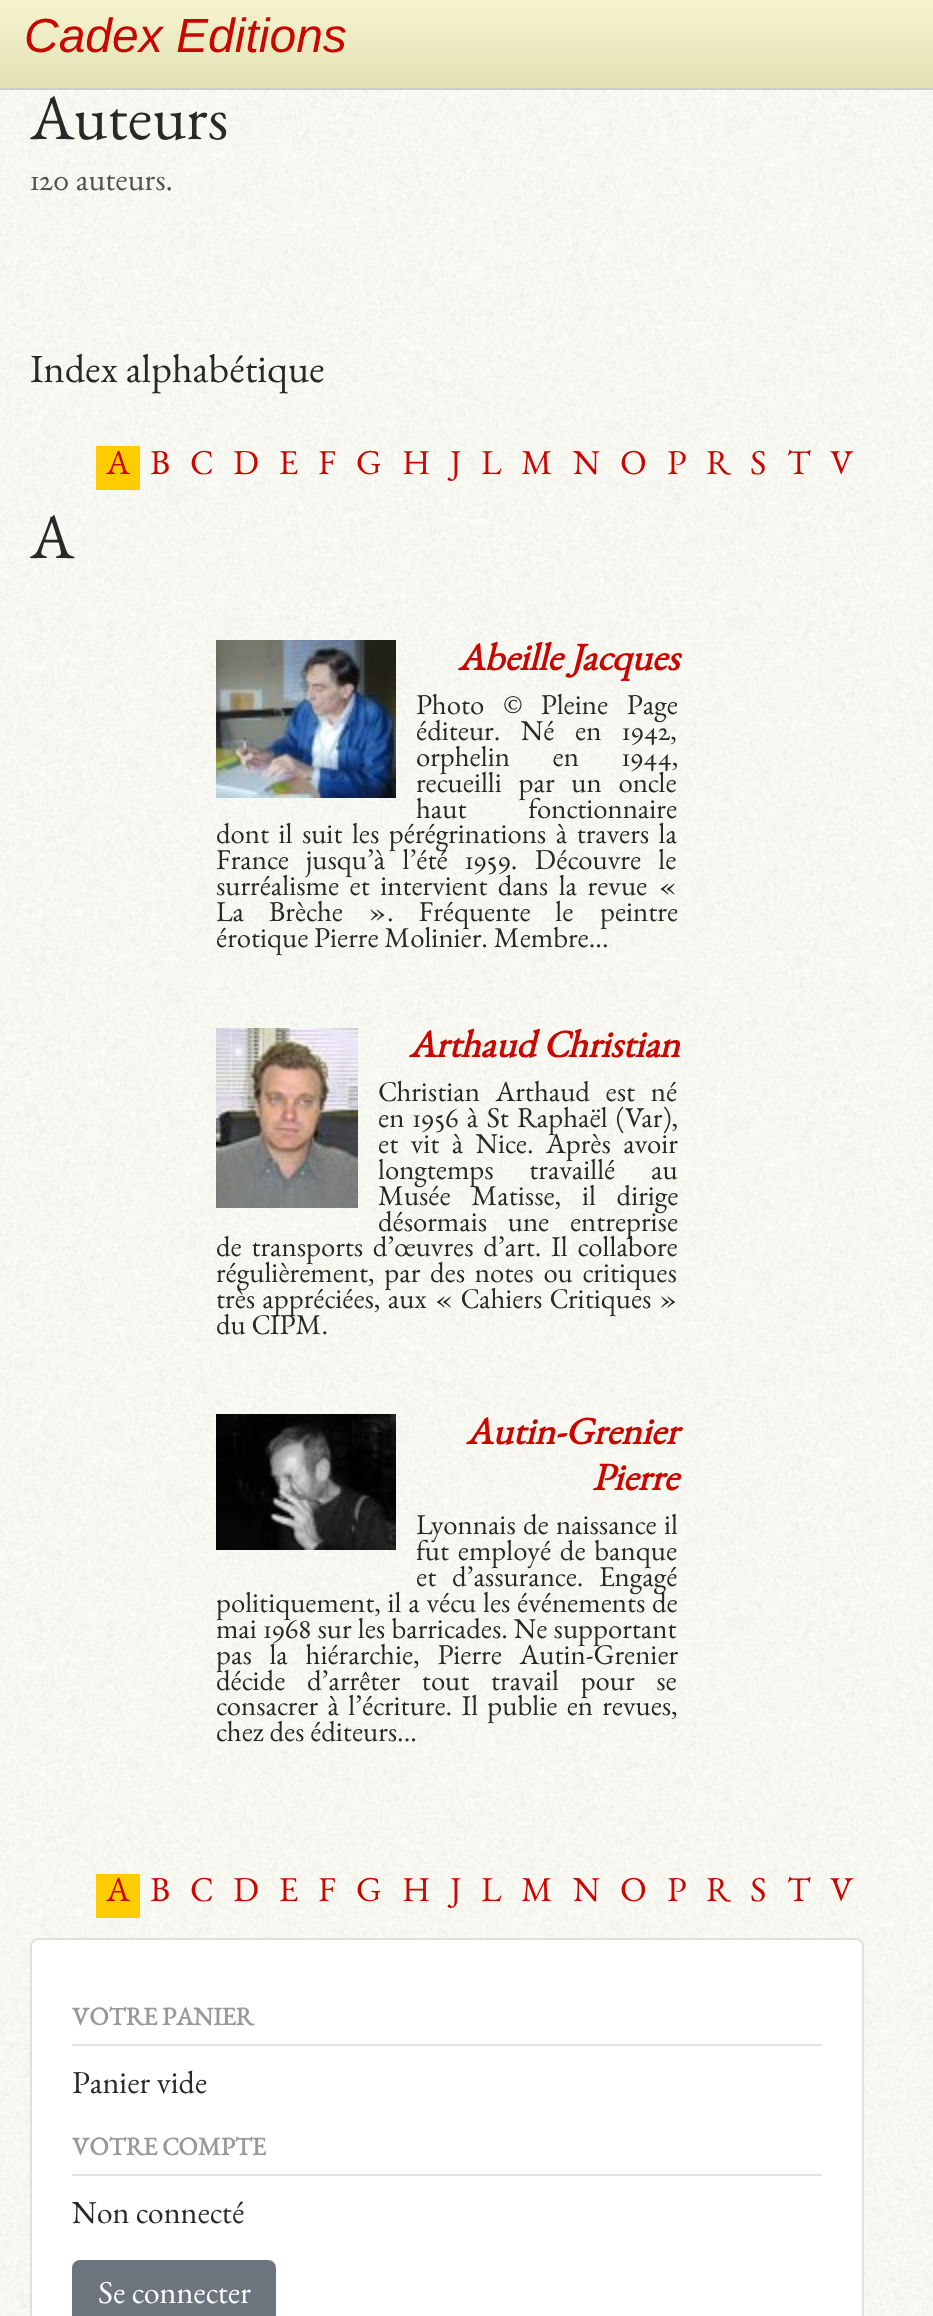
<svg xmlns="http://www.w3.org/2000/svg" width="933" height="2316">
<defs>
<linearGradient id="g1" gradientUnits="userSpaceOnUse" x1="467" y1="0" x2="467" y2="88"><stop offset="0" stop-color="#f5f4ce"/><stop offset="1" stop-color="#e3e1b4"/></linearGradient>
</defs>
<rect width="100%" height="100%" fill="#fff"/>
<image x="0" y="90" width="933" height="2226" href="media/1.png"/>
<rect width="933" height="88" fill="url(#g1)"/>
<rect y="88" width="933" height="2" fill="#ccc"/>
<text x="24" y="52" style="font-family:Liberation Sans;font-size:48px;font-style:italic;fill:#ca0600">Cadex Editions</text>
<text x="30" y="139" style="font-family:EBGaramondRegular;font-size:64px;fill:#282828">Auteurs</text>
<text x="30" y="190" style="font-family:EBGaramondRegular;font-size:32px;fill:#515150">120 auteurs.</text>
<text x="30" y="382" style="font-family:EBGaramondRegular;font-size:40px;fill:#282828">Index alphabétique</text>
<rect x="96" y="446" width="44" height="44" fill="#fc0"/>
<text x="106" y="474" style="font-family:EBGaramondRegular;font-size:35px;fill:#ca0600">A</text>
<text x="150" y="474" style="font-family:EBGaramondRegular;font-size:35px;fill:#ca0600">B</text>
<text x="190" y="474" style="font-family:EBGaramondRegular;font-size:35px;fill:#ca0600">C</text>
<text x="233" y="474" style="font-family:EBGaramondRegular;font-size:35px;fill:#ca0600">D</text>
<text x="279" y="474" style="font-family:EBGaramondRegular;font-size:35px;fill:#ca0600">E</text>
<text x="318" y="474" style="font-family:EBGaramondRegular;font-size:35px;fill:#ca0600">F</text>
<text x="356" y="474" style="font-family:EBGaramondRegular;font-size:35px;fill:#ca0600">G</text>
<text x="402" y="474" style="font-family:EBGaramondRegular;font-size:35px;fill:#ca0600">H</text>
<text x="450" y="474" style="font-family:EBGaramondRegular;font-size:35px;fill:#ca0600">J</text>
<text x="481" y="474" style="font-family:EBGaramondRegular;font-size:35px;fill:#ca0600">L</text>
<text x="521" y="474" style="font-family:EBGaramondRegular;font-size:35px;fill:#ca0600">M</text>
<text x="573" y="474" style="font-family:EBGaramondRegular;font-size:35px;fill:#ca0600">N</text>
<text x="620" y="474" style="font-family:EBGaramondRegular;font-size:35px;fill:#ca0600">O</text>
<text x="667" y="474" style="font-family:EBGaramondRegular;font-size:35px;fill:#ca0600">P</text>
<text x="706" y="474" style="font-family:EBGaramondRegular;font-size:35px;fill:#ca0600">R</text>
<text x="750" y="474" style="font-family:EBGaramondRegular;font-size:35px;fill:#ca0600">S</text>
<text x="787" y="474" style="font-family:EBGaramondRegular;font-size:35px;fill:#ca0600">T</text>
<text x="830" y="474" style="font-family:EBGaramondRegular;font-size:35px;fill:#ca0600">V</text>
<text x="30" y="558" style="font-family:EBGaramondRegular;font-size:64px;fill:#282828">A</text>
<image x="216" y="640" width="180" height="158" href="media/2.png"/>
<text x="458" y="670" style="font-family:EBGaramondRegular;font-size:38.5px;font-weight:bold;font-style:italic;fill:#ca0600">Abeille Jacques</text>
<text x="416" y="714" word-spacing="13" style="font-family:EBGaramondRegular;font-size:28.75px;fill:#282828">Photo © Pleine Page</text>
<text x="416" y="740" style="font-family:EBGaramondRegular;font-size:28.75px;fill:#282828">éditeur.</text>
<text x="521" y="740" word-spacing="15" style="font-family:EBGaramondRegular;font-size:28.75px;fill:#282828">Né en 1942,</text>
<text x="416" y="766" word-spacing="37" style="font-family:EBGaramondRegular;font-size:28.75px;fill:#282828">orphelin en 1944,</text>
<text x="416" y="792" word-spacing="11" style="font-family:EBGaramondRegular;font-size:28.75px;fill:#282828">recueilli par un oncle</text>
<text x="416" y="818" word-spacing="56" style="font-family:EBGaramondRegular;font-size:28.75px;fill:#282828">haut fonctionnaire</text>
<text x="216" y="843" word-spacing="3.75" style="font-family:EBGaramondRegular;font-size:28.75px;fill:#282828">dont il suit les pérégrinations à travers la</text>
<text x="216" y="869" word-spacing="11.5" style="font-family:EBGaramondRegular;font-size:28.75px;fill:#282828">France jusqu’à l’été 1959. Découvre le</text>
<text x="216" y="895" word-spacing="4.75" style="font-family:EBGaramondRegular;font-size:28.75px;fill:#282828">surréalisme et intervient dans la revue «</text>
<text x="216" y="921" word-spacing="19" style="font-family:EBGaramondRegular;font-size:28.75px;fill:#282828">La Brèche ». Fréquente le</text>
<text x="600" y="921" style="font-family:EBGaramondRegular;font-size:28.75px;fill:#282828">peintre</text>
<text x="216" y="947" style="font-family:EBGaramondRegular;font-size:28.75px;fill:#282828">érotique Pierre Molinier. Membre...</text>
<image x="216" y="1028" width="142" height="180" href="media/3.png"/>
<text x="409" y="1057" style="font-family:EBGaramondRegular;font-size:38.5px;font-weight:bold;font-style:italic;fill:#ca0600">Arthaud Christian</text>
<text x="378" y="1101" word-spacing="10" style="font-family:EBGaramondRegular;font-size:28.75px;fill:#282828">Christian Arthaud est né</text>
<text x="378" y="1127" word-spacing="2.5" style="font-family:EBGaramondRegular;font-size:28.75px;fill:#282828">en 1956 à St Raphaël (Var),</text>
<text x="378" y="1153" word-spacing="6.75" style="font-family:EBGaramondRegular;font-size:28.75px;fill:#282828">et vit à Nice. Après avoir</text>
<text x="378" y="1179" word-spacing="30" style="font-family:EBGaramondRegular;font-size:28.75px;fill:#282828">longtemps travaillé au</text>
<text x="378" y="1205" word-spacing="15" style="font-family:EBGaramondRegular;font-size:28.75px;fill:#282828">Musée Matisse, il dirige</text>
<text x="378" y="1231" word-spacing="15" style="font-family:EBGaramondRegular;font-size:28.75px;fill:#282828">désormais une entreprise</text>
<text x="216" y="1256" word-spacing="4" style="font-family:EBGaramondRegular;font-size:28.75px;fill:#282828">de transports d’œuvres d’art.</text>
<text x="551" y="1256" word-spacing="4" style="font-family:EBGaramondRegular;font-size:28.75px;fill:#282828">Il collabore</text>
<text x="216" y="1282" word-spacing="4" style="font-family:EBGaramondRegular;font-size:28.75px;fill:#282828">régulièrement, par des notes ou critiques</text>
<text x="216" y="1308" word-spacing="1.5" style="font-family:EBGaramondRegular;font-size:28.75px;fill:#282828">très appréciées, aux « Cahiers Critiques »</text>
<text x="216" y="1334" style="font-family:EBGaramondRegular;font-size:28.75px;fill:#282828">du CIPM.</text>
<image x="216" y="1414" width="180" height="136" href="media/4.png"/>
<text x="466" y="1444" style="font-family:EBGaramondRegular;font-size:38.5px;font-weight:bold;font-style:italic;fill:#ca0600">Autin-Grenier</text>
<text x="592" y="1490" style="font-family:EBGaramondRegular;font-size:38.5px;font-weight:bold;font-style:italic;fill:#ca0600">Pierre</text>
<text x="416" y="1534" word-spacing="1.5" style="font-family:EBGaramondRegular;font-size:28.75px;fill:#282828">Lyonnais de naissance il</text>
<text x="416" y="1560" word-spacing="3" style="font-family:EBGaramondRegular;font-size:28.75px;fill:#282828">fut employé de banque</text>
<text x="416" y="1586" word-spacing="10" style="font-family:EBGaramondRegular;font-size:28.75px;fill:#282828">et d’assurance. Engagé</text>
<text x="216" y="1612" word-spacing="1" style="font-family:EBGaramondRegular;font-size:28.75px;fill:#282828">politiquement, il a vécu les événements de</text>
<text x="216" y="1638" word-spacing="0.5" style="font-family:EBGaramondRegular;font-size:28.75px;fill:#282828">mai 1968 sur les barricades. Ne supportant</text>
<text x="216" y="1664" word-spacing="12" style="font-family:EBGaramondRegular;font-size:28.75px;fill:#282828">pas la hiérarchie, Pierre Autin-Grenier</text>
<text x="216" y="1690" word-spacing="16" style="font-family:EBGaramondRegular;font-size:28.75px;fill:#282828">décide d’arrêter tout travail pour se</text>
<text x="216" y="1715" word-spacing="3.5" style="font-family:EBGaramondRegular;font-size:28.75px;fill:#282828">consacrer à l’écriture. Il publie en revues,</text>
<text x="216" y="1741" style="font-family:EBGaramondRegular;font-size:28.75px;fill:#282828">chez des éditeurs...</text>
<rect x="96" y="1874" width="44" height="44" fill="#fc0"/>
<text x="106" y="1901" style="font-family:EBGaramondRegular;font-size:35px;fill:#ca0600">A</text>
<text x="150" y="1901" style="font-family:EBGaramondRegular;font-size:35px;fill:#ca0600">B</text>
<text x="190" y="1901" style="font-family:EBGaramondRegular;font-size:35px;fill:#ca0600">C</text>
<text x="233" y="1901" style="font-family:EBGaramondRegular;font-size:35px;fill:#ca0600">D</text>
<text x="279" y="1901" style="font-family:EBGaramondRegular;font-size:35px;fill:#ca0600">E</text>
<text x="318" y="1901" style="font-family:EBGaramondRegular;font-size:35px;fill:#ca0600">F</text>
<text x="356" y="1901" style="font-family:EBGaramondRegular;font-size:35px;fill:#ca0600">G</text>
<text x="402" y="1901" style="font-family:EBGaramondRegular;font-size:35px;fill:#ca0600">H</text>
<text x="450" y="1901" style="font-family:EBGaramondRegular;font-size:35px;fill:#ca0600">J</text>
<text x="481" y="1901" style="font-family:EBGaramondRegular;font-size:35px;fill:#ca0600">L</text>
<text x="521" y="1901" style="font-family:EBGaramondRegular;font-size:35px;fill:#ca0600">M</text>
<text x="573" y="1901" style="font-family:EBGaramondRegular;font-size:35px;fill:#ca0600">N</text>
<text x="620" y="1901" style="font-family:EBGaramondRegular;font-size:35px;fill:#ca0600">O</text>
<text x="667" y="1901" style="font-family:EBGaramondRegular;font-size:35px;fill:#ca0600">P</text>
<text x="706" y="1901" style="font-family:EBGaramondRegular;font-size:35px;fill:#ca0600">R</text>
<text x="750" y="1901" style="font-family:EBGaramondRegular;font-size:35px;fill:#ca0600">S</text>
<text x="787" y="1901" style="font-family:EBGaramondRegular;font-size:35px;fill:#ca0600">T</text>
<text x="830" y="1901" style="font-family:EBGaramondRegular;font-size:35px;fill:#ca0600">V</text>
<rect x="30" y="1938" width="834" height="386" rx="8" fill="#fff"/>
<rect x="31" y="1939" width="832" height="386" rx="7" fill="none" stroke="#0000001f" stroke-width="2"/>
<rect x="72" y="2044" width="750" height="2" fill="#e0e2e0"/>
<text x="72" y="2025" style="font-family:EBGaramondRegular;font-size:25.5px;font-weight:bold;fill:#999">VOTRE PANIER</text>
<text x="72" y="2093" style="font-family:EBGaramondRegular;font-size:32px;fill:#282828">Panier vide</text>
<rect x="72" y="2174" width="750" height="2" fill="#e0e2e0"/>
<text x="72" y="2155" style="font-family:EBGaramondRegular;font-size:25.5px;font-weight:bold;fill:#999">VOTRE COMPTE</text>
<text x="72" y="2223" style="font-family:EBGaramondRegular;font-size:32px;fill:#282828">Non connecté</text>
<rect x="73" y="2261" width="202" height="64" rx="7" fill="#6c757d" stroke="#6c757d" stroke-width="2"/>
<text x="98" y="2303" style="font-family:EBGaramondRegular;font-size:32px;fill:#fff">Se connecter</text>
</svg>
